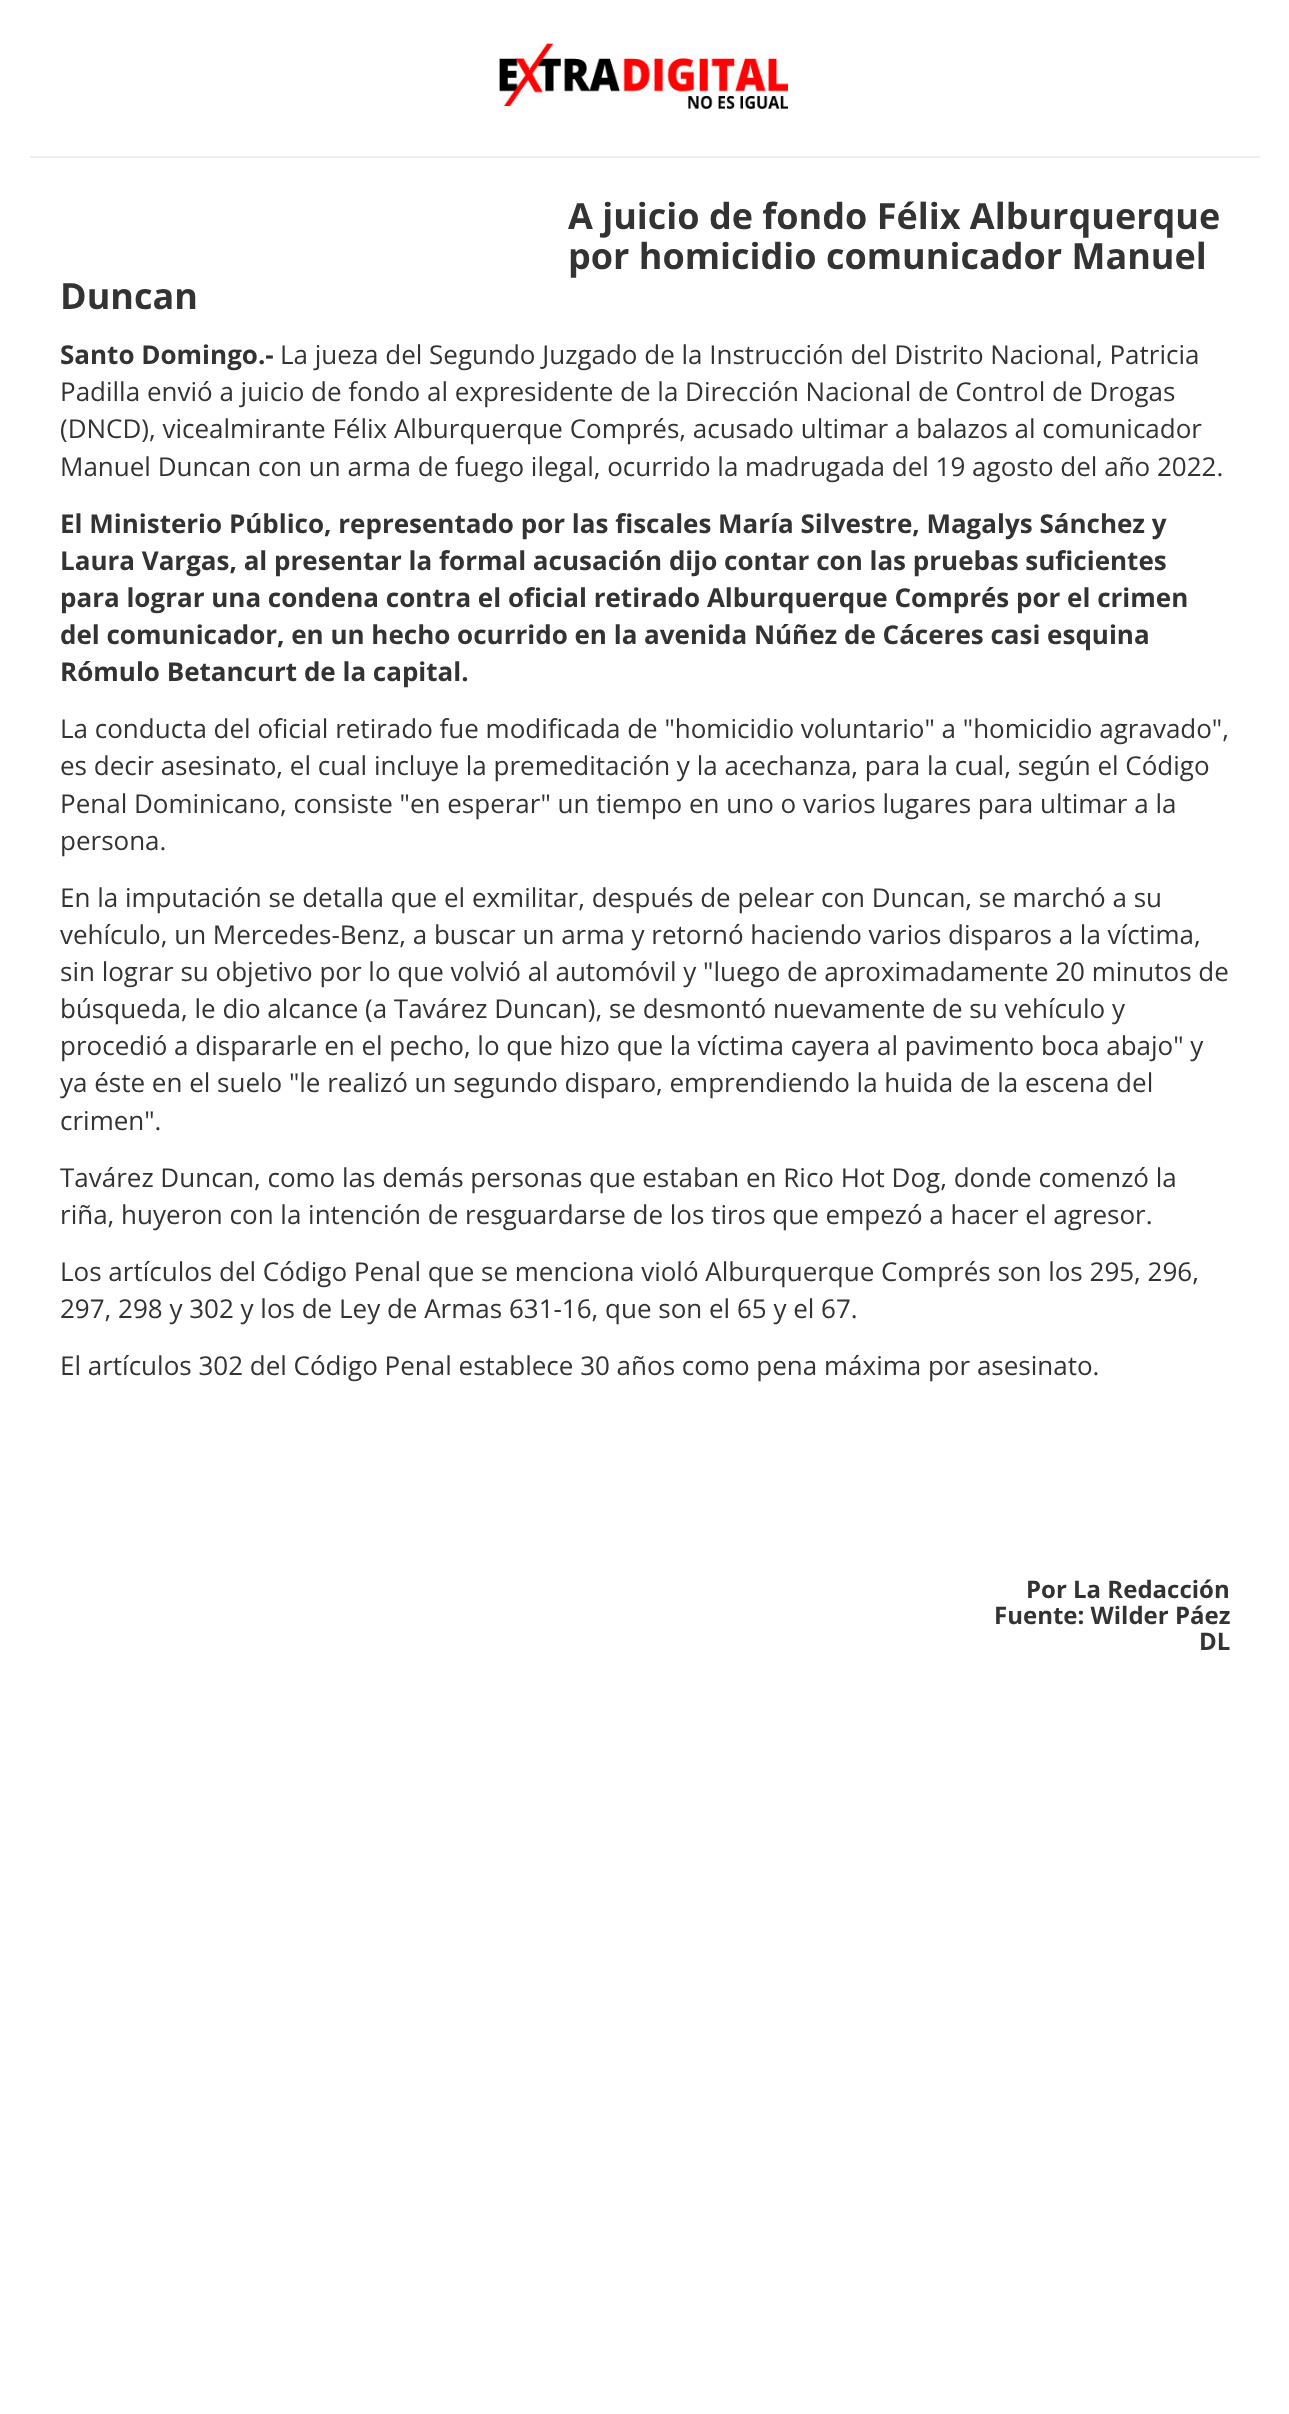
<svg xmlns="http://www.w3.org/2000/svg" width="1289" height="2414">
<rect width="100%" height="100%" fill="#fff"/>
<image x="499" y="40" width="292" height="72" href="media/1.png"/>
<rect x="30" y="156" width="1230" height="2" fill="#eee"/>
<text x="568" y="229" style="font-family:Open Sans;font-size:36px;font-weight:bold;fill:#333">A juicio de fondo Félix Alburquerque</text>
<text x="568" y="269" style="font-family:Open Sans;font-size:36px;font-weight:bold;fill:#333">por homicidio comunicador Manuel</text>
<text x="60" y="309" style="font-family:Open Sans;font-size:36px;font-weight:bold;fill:#333">Duncan</text>
<text x="60" y="364" style="font-family:Open Sans;font-size:26px;font-weight:bold;fill:#333">Santo Domingo.-</text>
<text x="280" y="364" style="font-family:Open Sans;font-size:26px;fill:#333">La jueza del Segundo Juzgado de la Instrucción del Distrito Nacional, Patricia</text>
<text x="60" y="401" style="font-family:Open Sans;font-size:26px;fill:#333">Padilla envió a juicio de fondo al expresidente de la Dirección Nacional de Control de Drogas</text>
<text x="60" y="438" style="font-family:Open Sans;font-size:26px;fill:#333">(DNCD), vicealmirante Félix Alburquerque Comprés, acusado ultimar a balazos al comunicador</text>
<text x="60" y="476" style="font-family:Open Sans;font-size:26px;fill:#333">Manuel Duncan con un arma de fuego ilegal, ocurrido la madrugada del 19 agosto del año 2022.</text>
<text x="60" y="533" style="font-family:Open Sans;font-size:26px;font-weight:bold;fill:#333">El Ministerio Público, representado por las fiscales María Silvestre, Magalys Sánchez y</text>
<text x="60" y="570" style="font-family:Open Sans;font-size:26px;font-weight:bold;fill:#333">Laura Vargas, al presentar la formal acusación dijo contar con las pruebas suficientes</text>
<text x="60" y="607" style="font-family:Open Sans;font-size:26px;font-weight:bold;fill:#333">para lograr una condena contra el oficial retirado Alburquerque Comprés por el crimen</text>
<text x="60" y="644" style="font-family:Open Sans;font-size:26px;font-weight:bold;fill:#333">del comunicador, en un hecho ocurrido en la avenida Núñez de Cáceres casi esquina</text>
<text x="60" y="681" style="font-family:Open Sans;font-size:26px;font-weight:bold;fill:#333">Rómulo Betancurt de la capital.</text>
<text x="60" y="738" style="font-family:Open Sans;font-size:26px;fill:#333">La conducta del oficial retirado fue modificada de "homicidio voluntario" a "homicidio agravado",</text>
<text x="60" y="775" style="font-family:Open Sans;font-size:26px;fill:#333">es decir asesinato, el cual incluye la premeditación y la acechanza, para la cual, según el Código</text>
<text x="60" y="813" style="font-family:Open Sans;font-size:26px;fill:#333">Penal Dominicano, consiste "en esperar" un tiempo en uno o varios lugares para ultimar a la</text>
<text x="60" y="850" style="font-family:Open Sans;font-size:26px;fill:#333">persona.</text>
<text x="60" y="907" style="font-family:Open Sans;font-size:26px;fill:#333">En la imputación se detalla que el exmilitar, después de pelear con Duncan, se marchó a su</text>
<text x="60" y="944" style="font-family:Open Sans;font-size:26px;fill:#333">vehículo, un Mercedes-Benz, a buscar un arma y retornó haciendo varios disparos a la víctima,</text>
<text x="60" y="981" style="font-family:Open Sans;font-size:26px;fill:#333">sin lograr su objetivo por lo que volvió al automóvil y "luego de aproximadamente 20 minutos de</text>
<text x="60" y="1018" style="font-family:Open Sans;font-size:26px;fill:#333">búsqueda, le dio alcance (a Tavárez Duncan), se desmontó nuevamente de su vehículo y</text>
<text x="60" y="1055" style="font-family:Open Sans;font-size:26px;fill:#333">procedió a dispararle en el pecho, lo que hizo que la víctima cayera al pavimento boca abajo" y</text>
<text x="60" y="1092" style="font-family:Open Sans;font-size:26px;fill:#333">ya éste en el suelo "le realizó un segundo disparo, emprendiendo la huida de la escena del</text>
<text x="60" y="1130" style="font-family:Open Sans;font-size:26px;fill:#333">crimen".</text>
<text x="60" y="1187" style="font-family:Open Sans;font-size:26px;fill:#333">Tavárez Duncan, como las demás personas que estaban en Rico Hot Dog, donde comenzó la</text>
<text x="60" y="1224" style="font-family:Open Sans;font-size:26px;fill:#333">riña, huyeron con la intención de resguardarse de los tiros que empezó a hacer el agresor.</text>
<text x="60" y="1281" style="font-family:Open Sans;font-size:26px;fill:#333">Los artículos del Código Penal que se menciona violó Alburquerque Comprés son los 295, 296,</text>
<text x="60" y="1318" style="font-family:Open Sans;font-size:26px;fill:#333">297, 298 y 302 y los de Ley de Armas 631-16, que son el 65 y el 67.</text>
<text x="60" y="1375" style="font-family:Open Sans;font-size:26px;fill:#333">El artículos 302 del Código Penal establece 30 años como pena máxima por asesinato.</text>
<text x="1026" y="1598" style="font-family:Open Sans;font-size:24px;font-weight:bold;fill:#333">Por La Redacción</text>
<text x="994" y="1624" style="font-family:Open Sans;font-size:24px;font-weight:bold;fill:#333">Fuente: Wilder Páez</text>
<text x="1199" y="1650" style="font-family:Open Sans;font-size:24px;font-weight:bold;fill:#333">DL</text>
</svg>
